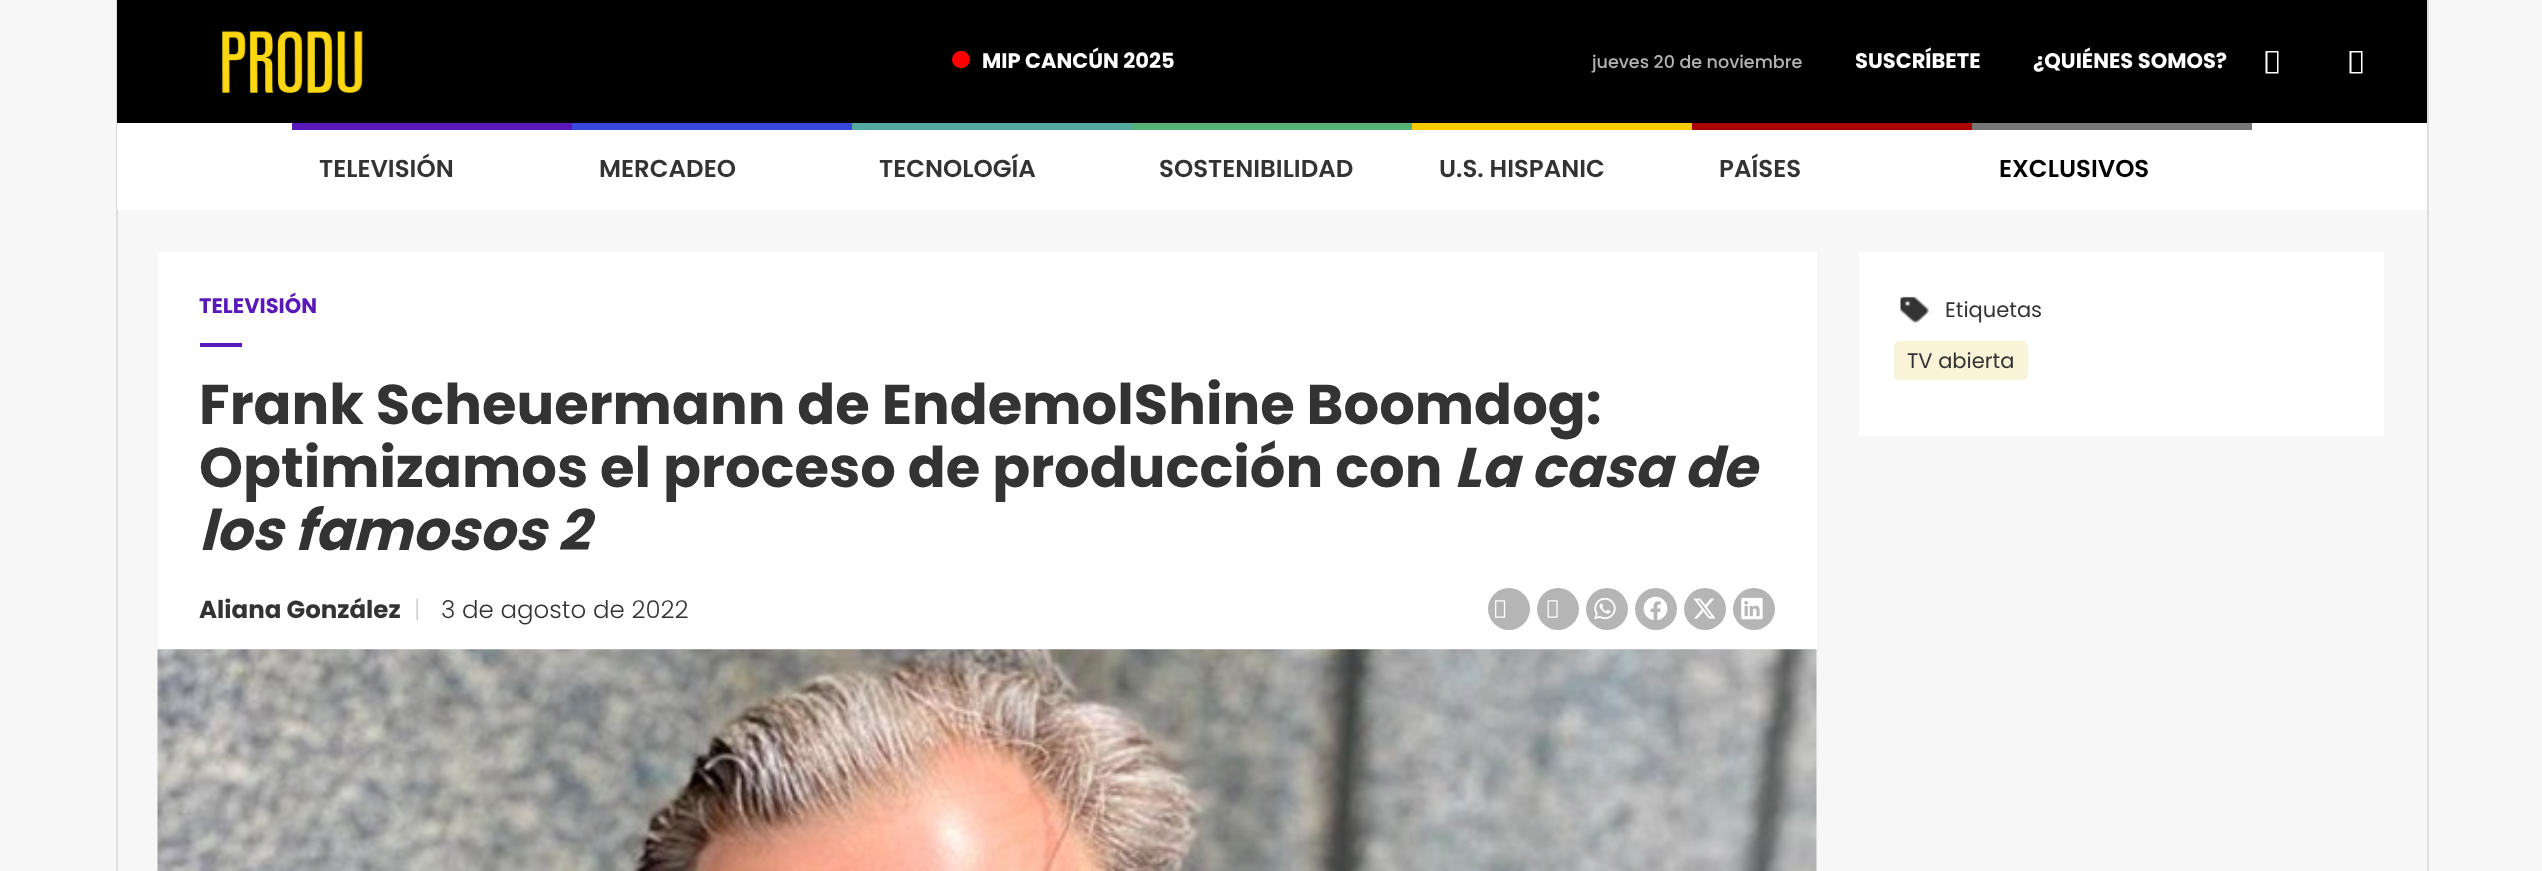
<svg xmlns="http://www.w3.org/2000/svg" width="2542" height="871">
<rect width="100%" height="100%" fill="#f7f7f7"/>
<rect x="2427" width="2" height="871" fill="#dedede"/>
<rect x="116" width="2" height="871" fill="#dedede"/>
<rect x="117" width="2310" height="123" fill="#000"/>
<image x="222" y="31" width="141" height="62" href="media/1.png"/>
<rect x="952" y="51" width="18" height="17" rx="8.5" fill="#f00"/>
<text x="982" y="68" style="font-family:Poppins;font-size:21px;font-weight:bold;fill:#fff">MIP CANCÚN 2025</text>
<text x="1592" y="68" style="font-family:Poppins;font-size:17.5px;font-weight:500;fill:#b3b3b3">jueves 20 de noviembre</text>
<text x="1855" y="68" style="font-family:Poppins;font-size:21px;font-weight:bold;fill:#fff">SUSCRÍBETE</text>
<text x="2033" y="68" style="font-family:Poppins;font-size:21px;font-weight:bold;fill:#fff">¿QUIÉNES SOMOS?</text>
<path d="M2265.5 73.5v-22.5h13v22.5zm2-1.5h9.5v-19.5h-9.5z" fill="#fff"/>
<path d="M2349.5 73.5v-22.5h13v22.5zm2-1.5h9.5v-19.5h-9.5z" fill="#fff"/>
<rect x="117" y="123" width="2310" height="87" fill="#fff"/>
<rect x="292" y="123" width="280" height="7" fill="#5918ba"/>
<text x="319" y="177" style="font-family:Poppins;font-size:24.5px;font-weight:600;fill:#333">TELEVISIÓN</text>
<rect x="572" y="123" width="280" height="7" fill="#3848db"/>
<text x="599" y="177" style="font-family:Poppins;font-size:24.5px;font-weight:600;fill:#333">MERCADEO</text>
<rect x="852" y="123" width="280" height="7" fill="#53aaa0"/>
<text x="879" y="177" style="font-family:Poppins;font-size:24.5px;font-weight:600;fill:#333">TECNOLOGÍA</text>
<rect x="1132" y="123" width="280" height="7" fill="#57b277"/>
<text x="1159" y="177" style="font-family:Poppins;font-size:24.5px;font-weight:600;fill:#333">SOSTENIBILIDAD</text>
<rect x="1412" y="123" width="280" height="7" fill="#fc0"/>
<text x="1439" y="177" style="font-family:Poppins;font-size:24.5px;font-weight:600;fill:#333">U.S. HISPANIC</text>
<rect x="1692" y="123" width="280" height="7" fill="#ac0000"/>
<text x="1719" y="177" style="font-family:Poppins;font-size:24.5px;font-weight:600;fill:#333">PAÍSES</text>
<rect x="1972" y="123" width="280" height="7" fill="#777"/>
<text x="1999" y="177" style="font-family:Poppins;font-size:24.5px;font-weight:600;fill:#000">EXCLUSIVOS</text>
<rect x="158" y="252" width="1659" height="397" fill="#fff"/>
<text x="199" y="313" style="font-family:Poppins;font-size:21px;font-weight:bold;fill:#5918ba">TELEVISIÓN</text>
<rect x="200" y="343" width="42" height="4" fill="#5918ba"/>
<text x="199" y="424" style="font-family:Poppins;font-size:56px;font-weight:bold;fill:#333">Frank Scheuermann de EndemolShine Boomdog:</text>
<text x="199" y="487" style="font-family:Poppins;font-size:56px;font-weight:bold;fill:#333">Optimizamos el proceso de producción con</text>
<text x="1454" y="487" style="font-family:Poppins;font-size:56px;font-weight:bold;font-style:italic;fill:#333">La casa de</text>
<text x="199" y="550" style="font-family:Poppins;font-size:56px;font-weight:bold;font-style:italic;fill:#333">los famosos 2</text>
<text x="199" y="618" style="font-family:Poppins;font-size:24.5px;font-weight:bold;fill:#333">Aliana González</text>
<text x="414" y="618" style="font-family:Poppins;font-size:24.5px;font-weight:300;fill:#d2d2d2">|</text>
<text x="441" y="618" style="font-family:Poppins;font-size:24.5px;font-weight:300;fill:#333">3 de agosto de 2022</text>
<circle cx="1509" cy="609" r="21" fill="#b5b5b5"/>
<image x="1495" y="600" width="11" height="18" href="media/2.png"/>
<circle cx="1558" cy="609" r="21" fill="#b5b5b5"/>
<image x="1547" y="600" width="11" height="18" href="media/3.png"/>
<circle cx="1607" cy="609" r="21" fill="#b5b5b5"/>
<image x="1594" y="597" width="22" height="23" href="media/4.png"/>
<circle cx="1656" cy="609" r="21" fill="#b5b5b5"/>
<image x="1643" y="596" width="25" height="25" href="media/5.png"/>
<circle cx="1705" cy="609" r="21" fill="#b5b5b5"/>
<image x="1693" y="598" width="23" height="21" href="media/6.png"/>
<circle cx="1754" cy="609" r="21" fill="#b5b5b5"/>
<image x="1741" y="597" width="22" height="23" href="media/7.png"/>
<image x="157" y="649" width="1660" height="222" href="media/8.png"/>
<rect x="1859" y="252" width="525" height="184" fill="#fff"/>
<image x="1900" y="296" width="29" height="27" href="media/9.png"/>
<text x="1945" y="317" style="font-family:Poppins;font-size:21px;fill:#333">Etiquetas</text>
<rect x="1894" y="341" width="134" height="39" rx="5" fill="#f9f4d7"/>
<text x="1907" y="368" style="font-family:Poppins;font-size:21px;fill:#333">TV abierta</text>
</svg>
